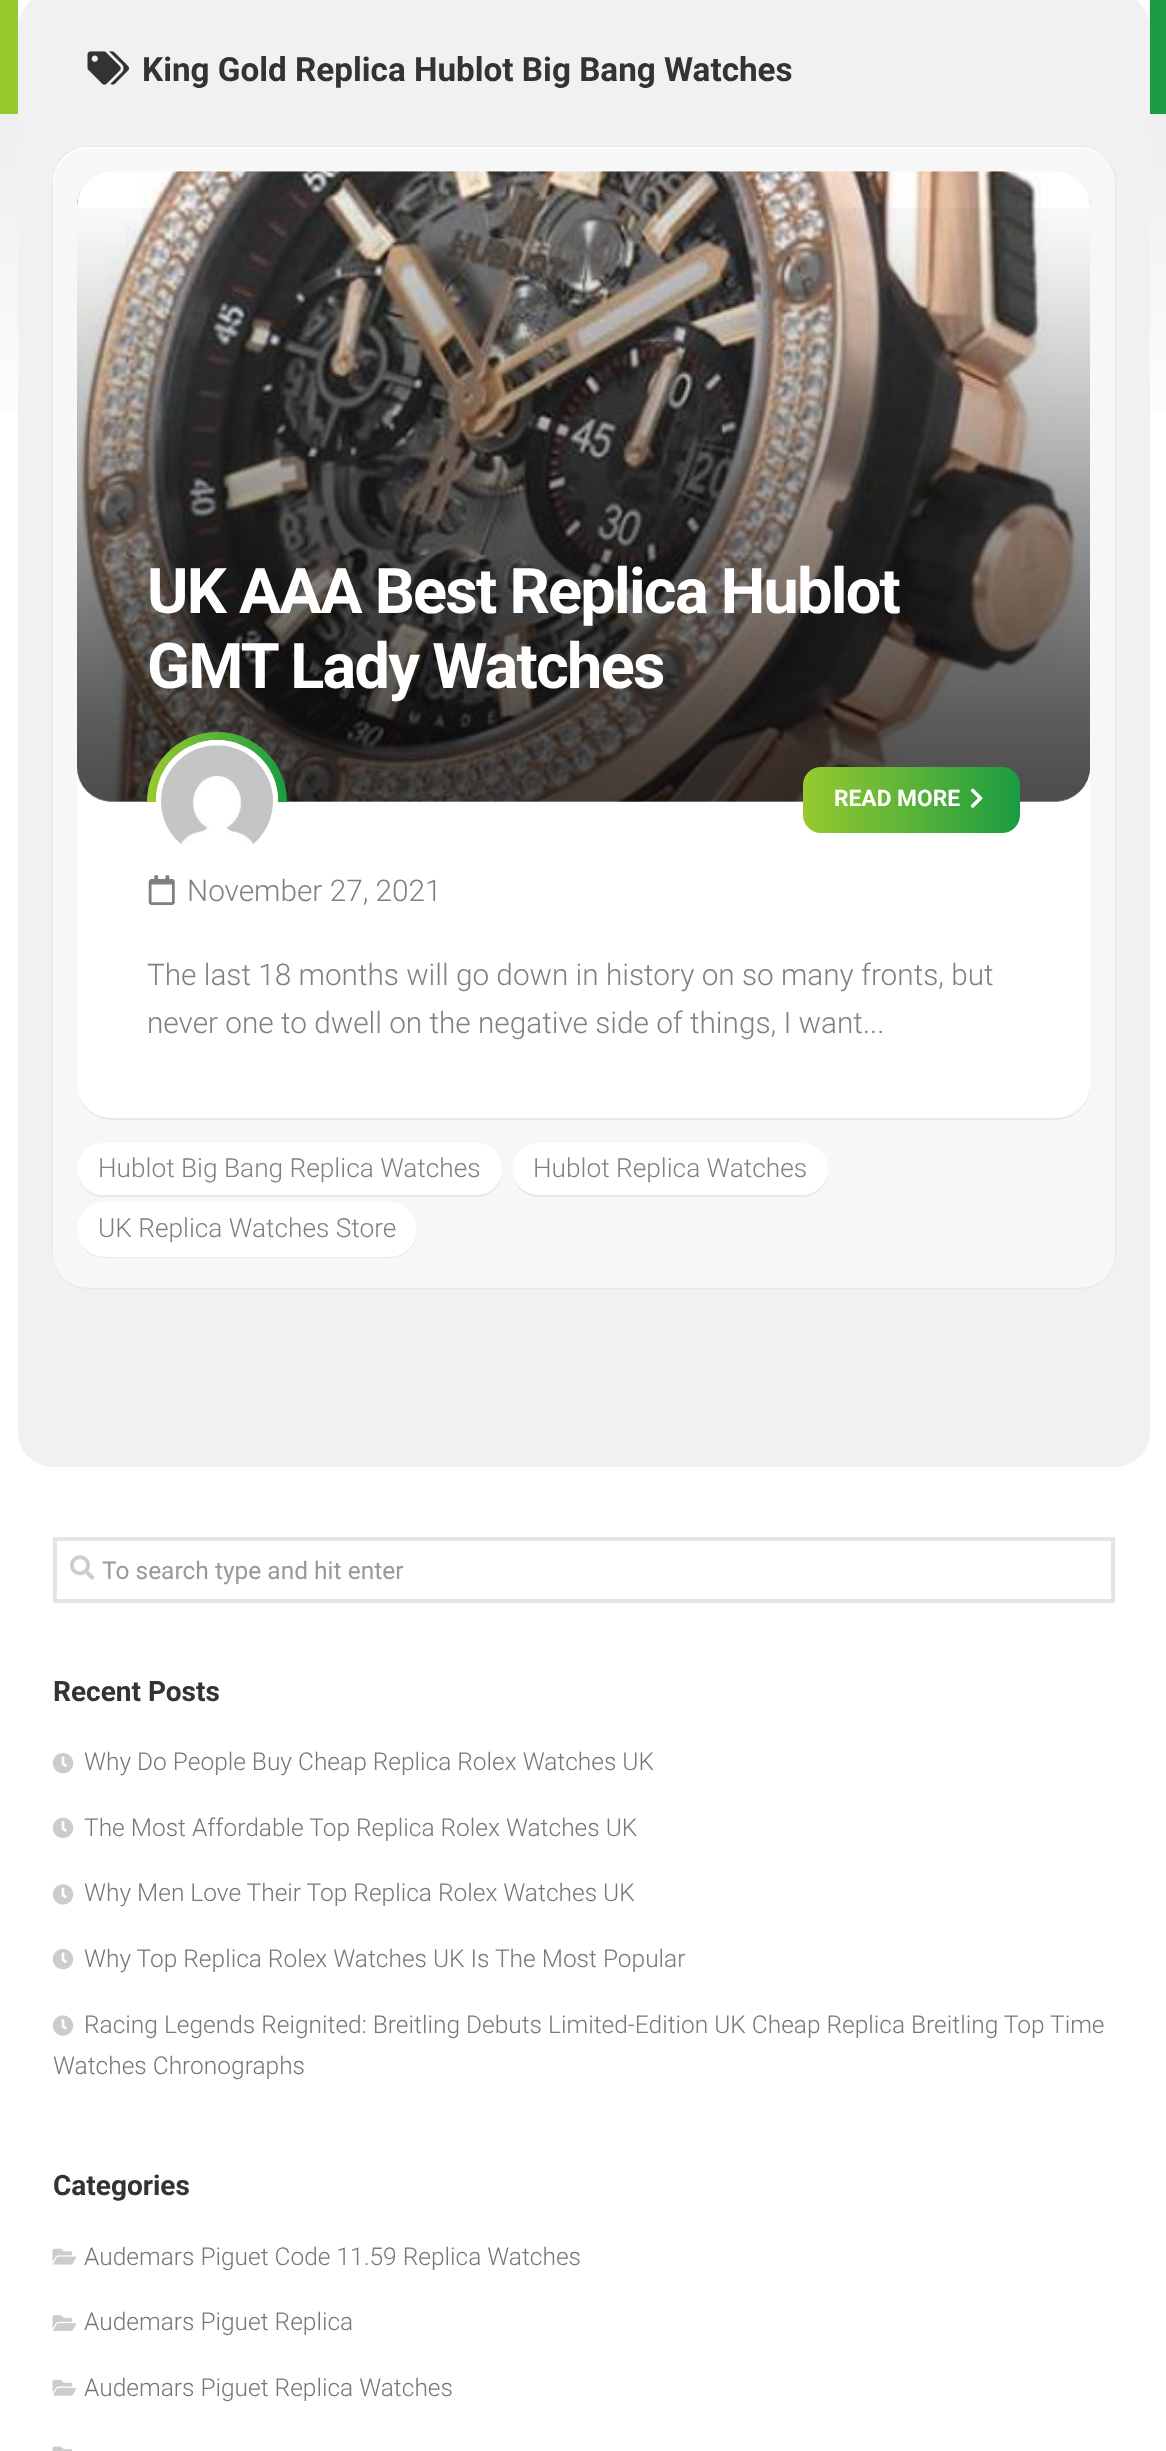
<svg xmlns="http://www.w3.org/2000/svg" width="1166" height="2451">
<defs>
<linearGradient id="g1" gradientUnits="userSpaceOnUse" x1="0" y1="-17" x2="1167" y2="-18"><stop offset="0" stop-color="#98ca2f"/><stop offset="1" stop-color="#1a9b41"/></linearGradient>
<linearGradient id="g2" gradientUnits="userSpaceOnUse" x1="584" y1="464" x2="584" y2="114"><stop offset="0" stop-color="#fff"/><stop offset="1" stop-color="#eee"/></linearGradient>
<linearGradient id="g3" gradientUnits="userSpaceOnUse" x1="147" y1="802" x2="287" y2="802"><stop offset="0" stop-color="#98ca2f"/><stop offset="1" stop-color="#1a9b41"/></linearGradient>
<linearGradient id="g4" gradientUnits="userSpaceOnUse" x1="803" y1="800" x2="1020" y2="800"><stop offset="0" stop-color="#98ca2f"/><stop offset="1" stop-color="#1a9b41"/></linearGradient>
<clipPath id="clip1"><rect x="77" y="172" width="1013" height="1092" rx="35"/></clipPath>
</defs>
<rect width="100%" height="100%" fill="#fff"/>
<rect width="1166" height="114" fill="url(#g1)"/>
<rect y="114" width="1166" height="299" fill="url(#g2)"/>
<rect x="18" width="1132" height="413" fill="#fff"/>
<rect x="18" y="-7" width="1132" height="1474" rx="35" fill="#f1f1f1"/>
<image x="87" y="51" width="42" height="34" href="media/1.png"/>
<text x="142" y="81" style="font-family:Roboto;font-size:33.25px;font-weight:bold;fill:#333">King Gold Replica Hublot Big Bang Watches</text>
<rect x="53" y="147" width="1062" height="1141" rx="35" fill="#0000001a" filter="blur(1px)"/>
<rect x="53" y="147" width="1062" height="1141" rx="35" fill="#f7f7f7"/>
<path d="M89 149h993c11 0 20 5 27 13c-7-9-17-15-29-15h-992c-19 0-35 16-35 35v1071c0 7 2 13 5 18c-2-5-4-10-4-16v-1071c0-20 16-35 35-35z" fill="#fff"/>
<rect x="77" y="172" width="1013" height="1092" rx="35" fill="#fff"/>
<rect x="77" y="172" width="1013" height="630" rx="35" fill="#666"/>
<image x="77" y="171" width="1013" height="631" href="media/2.png"/>
<image x="77" y="208" width="1013" height="594" href="media/3.png"/>
<text x="147" y="613" style="font-family:Roboto;font-size:63px;font-weight:bold;letter-spacing:-1.75px;fill:#fff">UK AAA Best Replica Hublot</text>
<text x="147" y="688" style="font-family:Roboto;font-size:63px;font-weight:bold;letter-spacing:-1.75px;fill:#fff">GMT Lady Watches</text>
<path d="M77 802h1013v427c0 19.5-15.5 35-35 35h-943c-19.5 0-35-15.5-35-35z" fill="#f7f7f7"/>
<path d="M77 1083v2c0 19 16 35 35 35h943c18 0 33-13 35-31c-3 17-17 29-35 29h-943c-19 0-35-15-35-35z" fill="#0000000f"/>
<path d="M77 802h1013v281c0 19.5-15.5 35-35 35h-943c-19.5 0-35-15.5-35-35z" fill="#fff"/>
<circle cx="217" cy="802" r="70" fill="url(#g3)"/>
<rect x="147" y="802" width="140" height="70" fill="#fff"/>
<rect x="156" y="740" width="122" height="123" rx="61" fill="#fff"/>
<path d="M217 740c12 0 24 4 34 10c50 34 26 113-34 113c-60 0-84-79-34-113c10-6 22-10 34-10z" fill="#fff"/>
<image x="161" y="745" width="112" height="99" href="media/4.png"/>
<rect x="803" y="767" width="217" height="66" rx="18" fill="url(#g4)"/>
<text x="834" y="806" style="font-family:Roboto;font-size:22.75px;font-weight:bold;fill:#fff">READ MORE</text>
<image x="970" y="788" width="13" height="20" href="media/5.png"/>
<image x="148" y="875" width="27" height="30" href="media/6.png"/>
<text x="187" y="901" style="font-family:Roboto;font-size:29.75px;font-weight:300;fill:#808080">November 27, 2021</text>
<text x="147" y="985" style="font-family:Roboto;font-size:29.75px;font-weight:300;fill:#808080">The last 18 months will go down in history on so many fronts, but</text>
<text x="147" y="1033" style="font-family:Roboto;font-size:29.75px;font-weight:300;fill:#808080">never one to dwell on the negative side of things, I want...</text>
<path d="M77 1170v1c0 14 12 26 26 26h373c14 0 25-10 26-24c-2 13-13 22-26 22h-373c-14 0-25-11-26-25z" fill="#e8e8e8"/>
<rect x="77" y="1143" width="425" height="52" rx="26" fill="#fff"/>
<text x="98" y="1177" style="font-family:Roboto;font-size:26.25px;font-weight:300;fill:#808080">Hublot Big Bang Replica Watches</text>
<path d="M513 1173c1 14 12 24 26 24h263c14 0 26-12 26-26v-4v2c0 14-12 26-26 26h-263c-13 0-24-9-26-22z" fill="#e8e8e8"/>
<rect x="513" y="1143" width="315" height="52" rx="26" fill="#fff"/>
<text x="533" y="1177" style="font-family:Roboto;font-size:26.25px;font-weight:300;fill:#808080">Hublot Replica Watches</text>
<path d="M77 1232c1 5 2 9 4 12c4 9 13 14 23 14h286c15 0 27-12 27-27c0-3-1-6-1-9v7c0 15-12 27-27 27h-285c-14 0-25-10-27-24z" fill="#e8e8e8"/>
<g clip-path="url(#clip1)">
<rect x="77" y="1202" width="340" height="55" rx="27.5" fill="#fff"/>
</g>
<text x="98" y="1237" style="font-family:Roboto;font-size:26.25px;font-weight:300;fill:#808080">UK Replica Watches Store</text>
<rect x="55" y="1539" width="1058" height="62" fill="none" stroke="#e5e5e5" stroke-width="4"/>
<image x="70" y="1555" width="25" height="25" href="media/7.png"/>
<text x="102" y="1579" style="font-family:Roboto;font-size:24.5px;fill:#999">To search type and hit enter</text>
<text x="53" y="1701" style="font-family:Roboto;font-size:28px;font-weight:bold;fill:#333">Recent Posts</text>
<image x="52" y="1753" width="22" height="21" href="media/8.png"/>
<text x="84" y="1770" style="font-family:Roboto;font-size:24.5px;font-weight:300;fill:#777">Why Do People Buy Cheap Replica Rolex Watches UK</text>
<image x="52" y="1817" width="22" height="21" href="media/9.png"/>
<text x="84" y="1836" style="font-family:Roboto;font-size:24.5px;font-weight:300;fill:#777">The Most Affordable Top Replica Rolex Watches UK</text>
<image x="52" y="1884" width="22" height="21" href="media/10.png"/>
<text x="84" y="1901" style="font-family:Roboto;font-size:24.5px;font-weight:300;fill:#777">Why Men Love Their Top Replica Rolex Watches UK</text>
<image x="52" y="1949" width="22" height="21" href="media/8.png"/>
<text x="84" y="1967" style="font-family:Roboto;font-size:24.5px;font-weight:300;fill:#777">Why Top Replica Rolex Watches UK Is The Most Popular</text>
<image x="52" y="2015" width="22" height="21" href="media/11.png"/>
<text x="84" y="2033" style="font-family:Roboto;font-size:24.5px;font-weight:300;fill:#777">Racing Legends Reignited: Breitling Debuts Limited-Edition UK Cheap Replica Breitling Top Time</text>
<text x="53" y="2074" style="font-family:Roboto;font-size:24.5px;font-weight:300;fill:#777">Watches Chronographs</text>
<text x="53" y="2195" style="font-family:Roboto;font-size:28px;font-weight:bold;fill:#333">Categories</text>
<image x="52" y="2248" width="24" height="17" href="media/12.png"/>
<text x="84" y="2265" style="font-family:Roboto;font-size:24.5px;font-weight:300;fill:#777">Audemars Piguet Code 11.59 Replica Watches</text>
<image x="52" y="2315" width="24" height="16" href="media/13.png"/>
<text x="84" y="2330" style="font-family:Roboto;font-size:24.5px;font-weight:300;fill:#777">Audemars Piguet Replica</text>
<image x="52" y="2380" width="24" height="16" href="media/14.png"/>
<text x="84" y="2396" style="font-family:Roboto;font-size:24.5px;font-weight:300;fill:#777">Audemars Piguet Replica Watches</text>
<image x="52" y="2446" width="20" height="5" href="media/15.png"/>
</svg>
